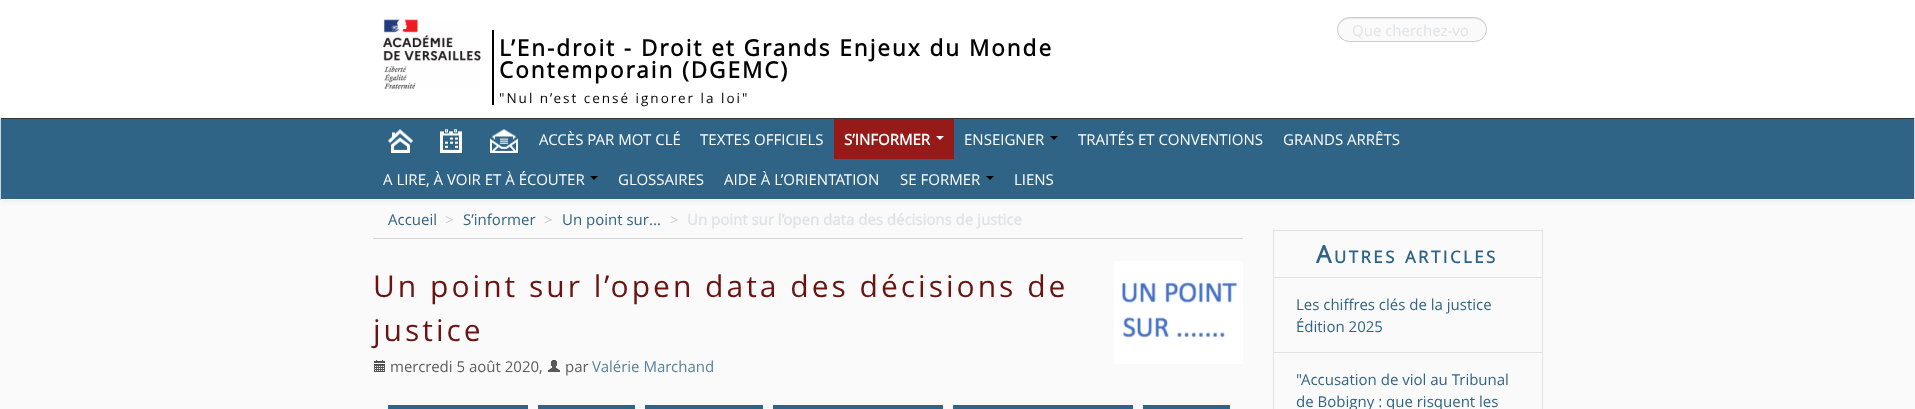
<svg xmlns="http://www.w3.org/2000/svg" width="1915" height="409">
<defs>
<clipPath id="clip1"><rect x="1352" y="20" width="116" height="20"/></clipPath>
</defs>
<rect width="100%" height="100%" fill="#fafafa"/>
<rect y="119" width="1915" height="82" fill="#00000012" filter="blur(2px)"/>
<rect width="1915" height="117" fill="#fff"/>
<rect y="117" width="1915" height="1" fill="#fafafa"/>
<rect x="1337" y="17" width="150" height="25" rx="12.5" fill="#fafafa"/>
<path d="M1350 19h124c7 0 12 5 12 11c0-17-24-12-32-12h-84c-8 0-32-5-32 12c0-6 5-11 12-11z" fill="#e7e7e7"/>
<rect x="1337.5" y="17.5" width="149" height="24" rx="12" fill="none" stroke="#ccc"/>
<g clip-path="url(#clip1)">
<text x="1352" y="36" style="font-family:Open Sans;font-size:15px;fill:#e0e2e4">Que cherchez-vo</text>
</g>
<image x="382" y="19" width="99" height="70" href="media/1.png"/>
<rect x="492" y="30" width="2" height="75" fill="#000"/>
<text x="499" y="56" style="font-family:Open Sans;font-size:22.5px;font-weight:bold;letter-spacing:2px;fill:#000">L’En-droit - Droit et Grands Enjeux du Monde</text>
<text x="499" y="78" style="font-family:Open Sans;font-size:22.5px;font-weight:bold;letter-spacing:2px;fill:#000">Contemporain (DGEMC)</text>
<text x="499" y="103" style="font-family:Open Sans;font-size:13.5px;letter-spacing:2px;fill:#000">"Nul n’est censé ignorer la loi"</text>
<rect x="1" y="119" width="1913" height="80" fill="#2f6486"/>
<rect y="118" width="1915" height="1" fill="#363636"/>
<rect x="1914" y="118" width="1" height="82" fill="#d2d5d8"/>
<rect y="199" width="1915" height="1" fill="#fafafa"/>
<rect y="118" width="1" height="82" fill="#d2d5d8"/>
<image x="388" y="129" width="25" height="24" href="media/2.png"/>
<image x="440" y="129" width="22" height="24" href="media/3.png"/>
<image x="490" y="129" width="28" height="24" href="media/4.png"/>
<text x="539" y="145" style="font-family:Open Sans;font-size:15px;fill:#fff">ACCÈS PAR MOT CLÉ</text>
<text x="700" y="145" style="font-family:Open Sans;font-size:15px;fill:#fff">TEXTES OFFICIELS</text>
<rect x="834" y="119" width="120" height="40" fill="#961a18"/>
<text x="844" y="145" style="font-family:Open Sans;font-size:15px;font-weight:bold;fill:#fff">S’INFORMER</text>
<path d="M936 136h8l-4 4z" fill="#fafafa"/>
<text x="964" y="145" style="font-family:Open Sans;font-size:15px;fill:#fff">ENSEIGNER</text>
<path d="M1050 136h8l-4 4z" fill="#000"/>
<text x="1078" y="145" style="font-family:Open Sans;font-size:15px;fill:#fff">TRAITÉS ET CONVENTIONS</text>
<text x="1283" y="145" style="font-family:Open Sans;font-size:15px;fill:#fff">GRANDS ARRÊTS</text>
<text x="383" y="185" style="font-family:Open Sans;font-size:15px;fill:#fff">A LIRE, À VOIR ET À ÉCOUTER</text>
<path d="M590 176h8l-4 4z" fill="#000"/>
<text x="618" y="185" style="font-family:Open Sans;font-size:15px;fill:#fff">GLOSSAIRES</text>
<text x="724" y="185" style="font-family:Open Sans;font-size:15px;fill:#fff">AIDE À L’ORIENTATION</text>
<text x="900" y="185" style="font-family:Open Sans;font-size:15px;fill:#fff">SE FORMER</text>
<path d="M986 176h8l-4 4z" fill="#000"/>
<text x="1014" y="185" style="font-family:Open Sans;font-size:15px;fill:#fff">LIENS</text>
<rect x="373" y="238" width="870" height="1" fill="#d4d4d4"/>
<text x="388" y="225" style="font-family:Open Sans;font-size:15px;fill:#2f6486">Accueil</text>
<text x="445" y="225" style="font-family:Open Sans;font-size:15px;fill:#ccc">&gt;</text>
<text x="463" y="225" style="font-family:Open Sans;font-size:15px;fill:#2f6486">S’informer</text>
<text x="544" y="225" style="font-family:Open Sans;font-size:15px;fill:#ccc">&gt;</text>
<text x="562" y="225" style="font-family:Open Sans;font-size:15px;fill:#2f6486">Un point sur...</text>
<text x="670" y="225" style="font-family:Open Sans;font-size:15px;fill:#ccc">&gt;</text>
<text x="687" y="225" style="font-family:Open Sans;font-size:15px;font-weight:bold;fill:#e0e2e4">Un point sur l’open data des décisions de justice</text>
<text x="373" y="297" style="font-family:Open Sans;font-size:30px;letter-spacing:3px;fill:#6a1311">Un point sur l’open data des décisions de</text>
<text x="373" y="341" style="font-family:Open Sans;font-size:30px;letter-spacing:3px;fill:#6a1311">justice</text>
<image x="1114" y="261" width="129" height="103" href="media/5.png"/>
<image x="374" y="360" width="11" height="12" href="media/6.png"/>
<text x="390" y="372" style="font-family:Open Sans;font-size:15px;fill:#5d5d5d">mercredi 5 août 2020,</text>
<image x="548" y="360" width="12" height="12" href="media/7.png"/>
<text x="565" y="372" style="font-family:Open Sans;font-size:15px;fill:#5d5d5d">par</text>
<text x="592" y="372" style="font-family:Open Sans;font-size:15px;fill:#58829d">Valérie Marchand</text>
<rect x="388" y="405" width="140" height="4" fill="#2f6486"/>
<rect x="538" y="405" width="97" height="4" fill="#2f6486"/>
<rect x="645" y="405" width="118" height="4" fill="#2f6486"/>
<rect x="773" y="405" width="170" height="4" fill="#2f6486"/>
<rect x="953" y="405" width="180" height="4" fill="#2f6486"/>
<rect x="1143" y="405" width="87" height="4" fill="#2f6486"/>
<rect x="1273.5" y="230.5" width="269" height="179" fill="none" stroke="#e0e2e4"/>
<text x="1316" y="263" style="font-family:Open Sans;font-size:24px;font-weight:bold;letter-spacing:2.5px;fill:#2f6486">A</text>
<text x="1334" y="263" style="font-family:Open Sans;font-size:16.75px;font-weight:bold;letter-spacing:2.5px;fill:#2f6486">UTRES</text>
<text x="1405" y="263" style="font-family:Open Sans;font-size:16.75px;font-weight:bold;letter-spacing:2.5px;fill:#2f6486">ARTICLES</text>
<rect x="1274" y="277" width="268" height="1" fill="#e0e2e4"/>
<rect x="1274" y="352" width="268" height="1" fill="#e0e2e4"/>
<text x="1296" y="310" style="font-family:Open Sans;font-size:15px;fill:#2f6486">Les chiffres clés de la justice</text>
<text x="1296" y="332" style="font-family:Open Sans;font-size:15px;fill:#2f6486">Édition 2025</text>
<text x="1296" y="385" style="font-family:Open Sans;font-size:15px;fill:#2f6486">"Accusation de viol au Tribunal</text>
<text x="1296" y="407" style="font-family:Open Sans;font-size:15px;fill:#2f6486">de Bobigny : que risquent les</text>
</svg>
